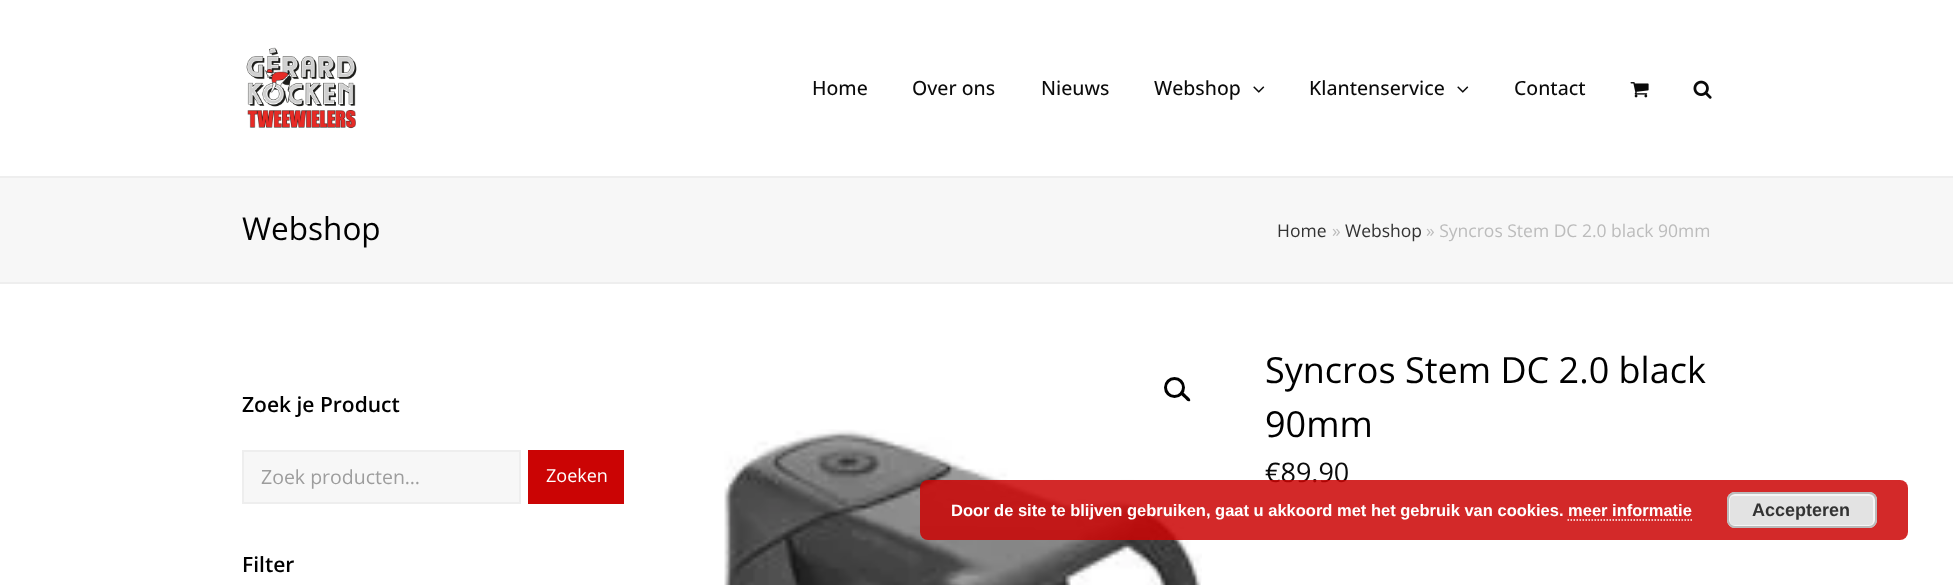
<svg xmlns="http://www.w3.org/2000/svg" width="1953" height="585">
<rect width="100%" height="100%" fill="#fff"/>
<image x="246" y="47" width="111" height="82" href="media/1.png"/>
<text x="812" y="95" style="font-family:Open Sans;font-size:19.5px;font-weight:500;fill:#0a0a0a">Home</text>
<text x="912" y="95" style="font-family:Open Sans;font-size:19.5px;font-weight:500;fill:#0a0a0a">Over ons</text>
<text x="1041" y="95" style="font-family:Open Sans;font-size:19.5px;font-weight:500;fill:#0a0a0a">Nieuws</text>
<text x="1154" y="95" style="font-family:Open Sans;font-size:19.5px;font-weight:500;fill:#0a0a0a">Webshop</text>
<image x="1253" y="86" width="12" height="7" href="media/2.png"/>
<text x="1309" y="95" style="font-family:Open Sans;font-size:19.5px;font-weight:500;fill:#0a0a0a">Klantenservice</text>
<image x="1457" y="86" width="12" height="7" href="media/2.png"/>
<text x="1514" y="95" style="font-family:Open Sans;font-size:19.5px;font-weight:500;fill:#0a0a0a">Contact</text>
<image x="1630" y="82" width="19" height="16" href="media/3.png"/>
<image x="1693" y="80" width="19" height="19" href="media/4.png"/>
<rect y="178" width="1953" height="104" fill="#f7f7f7"/>
<rect y="176" width="1953" height="2" fill="#eee"/>
<rect y="282" width="1953" height="2" fill="#eee"/>
<text x="242" y="240" style="font-family:Open Sans;font-size:31.5px;fill:#000">Webshop</text>
<text x="1277" y="237" style="font-family:Open Sans;font-size:17.5px;fill:#333">Home</text>
<text x="1332" y="237" style="font-family:Open Sans;font-size:17.5px;fill:#bcbcbc">»</text>
<text x="1345" y="237" style="font-family:Open Sans;font-size:17.5px;fill:#333">Webshop</text>
<text x="1426" y="237" style="font-family:Open Sans;font-size:17.5px;fill:#bcbcbc">» Syncros Stem DC 2.0 black 90mm</text>
<text x="242" y="412" style="font-family:Open Sans;font-size:21px;font-weight:600;fill:#000">Zoek je Product</text>
<rect x="243" y="451" width="277" height="52" fill="#f7f7f7" stroke="#eee" stroke-width="2"/>
<text x="261" y="484" style="font-family:Open Sans;font-size:19.5px;fill:#9d9d9d">Zoek producten…</text>
<rect x="528" y="450" width="96" height="54" fill="#cb0404"/>
<text x="546" y="482" style="font-family:Open Sans;font-size:18px;fill:#fff">Zoeken</text>
<text x="242" y="572" style="font-family:Open Sans;font-size:21px;font-weight:600;fill:#000">Filter</text>
<circle cx="1174.5" cy="387.5" r="9" fill="none" stroke="#000" stroke-width="3"/>
<path d="M1181.5 392.5c1.5-1.5 4.5 2.5 5 3c1 1 5 4 3.5 5.5c-2 1.5-4.5-2-5.5-3c-1-1-5-3.5-3-5.5z" fill="#000"/>
<image x="724" y="429" width="478" height="156" href="media/5.png"/>
<text x="1265" y="383" style="font-family:Open Sans;font-size:36px;fill:#000">Syncros Stem DC 2.0 black</text>
<text x="1265" y="437" style="font-family:Open Sans;font-size:36px;fill:#000">90mm</text>
<text x="1265" y="482" style="font-family:Open Sans;font-size:27px;fill:#0a0a0a">€89.90</text>
<rect x="920" y="480" width="988" height="60" rx="8" fill="#cb0404d9"/>
<text x="951" y="516" style="font-family:Liberation Sans;font-size:16.5px;font-weight:bold;fill:#fff">Door de site te blijven gebruiken, gaat u akkoord met het gebruik van cookies. meer informatie</text>
<rect x="1727" y="492" width="150" height="36" rx="8" fill="#e3e3e3"/>
<rect x="1729" y="495" width="145" height="31" rx="5" fill="none" stroke="#f6f6f6" stroke-width="2"/>
<rect x="1728" y="493" width="148" height="34" rx="7" fill="none" stroke="#bbb" stroke-width="2"/>
<text x="1752" y="516" style="font-family:Liberation Sans;font-size:18px;font-weight:bold;fill:#333">Accepteren</text>
<path d="M1567.5 520h124.5" fill="none" stroke="#fff" stroke-width="1.5" stroke-dasharray="1.5 1.5"/>
</svg>
